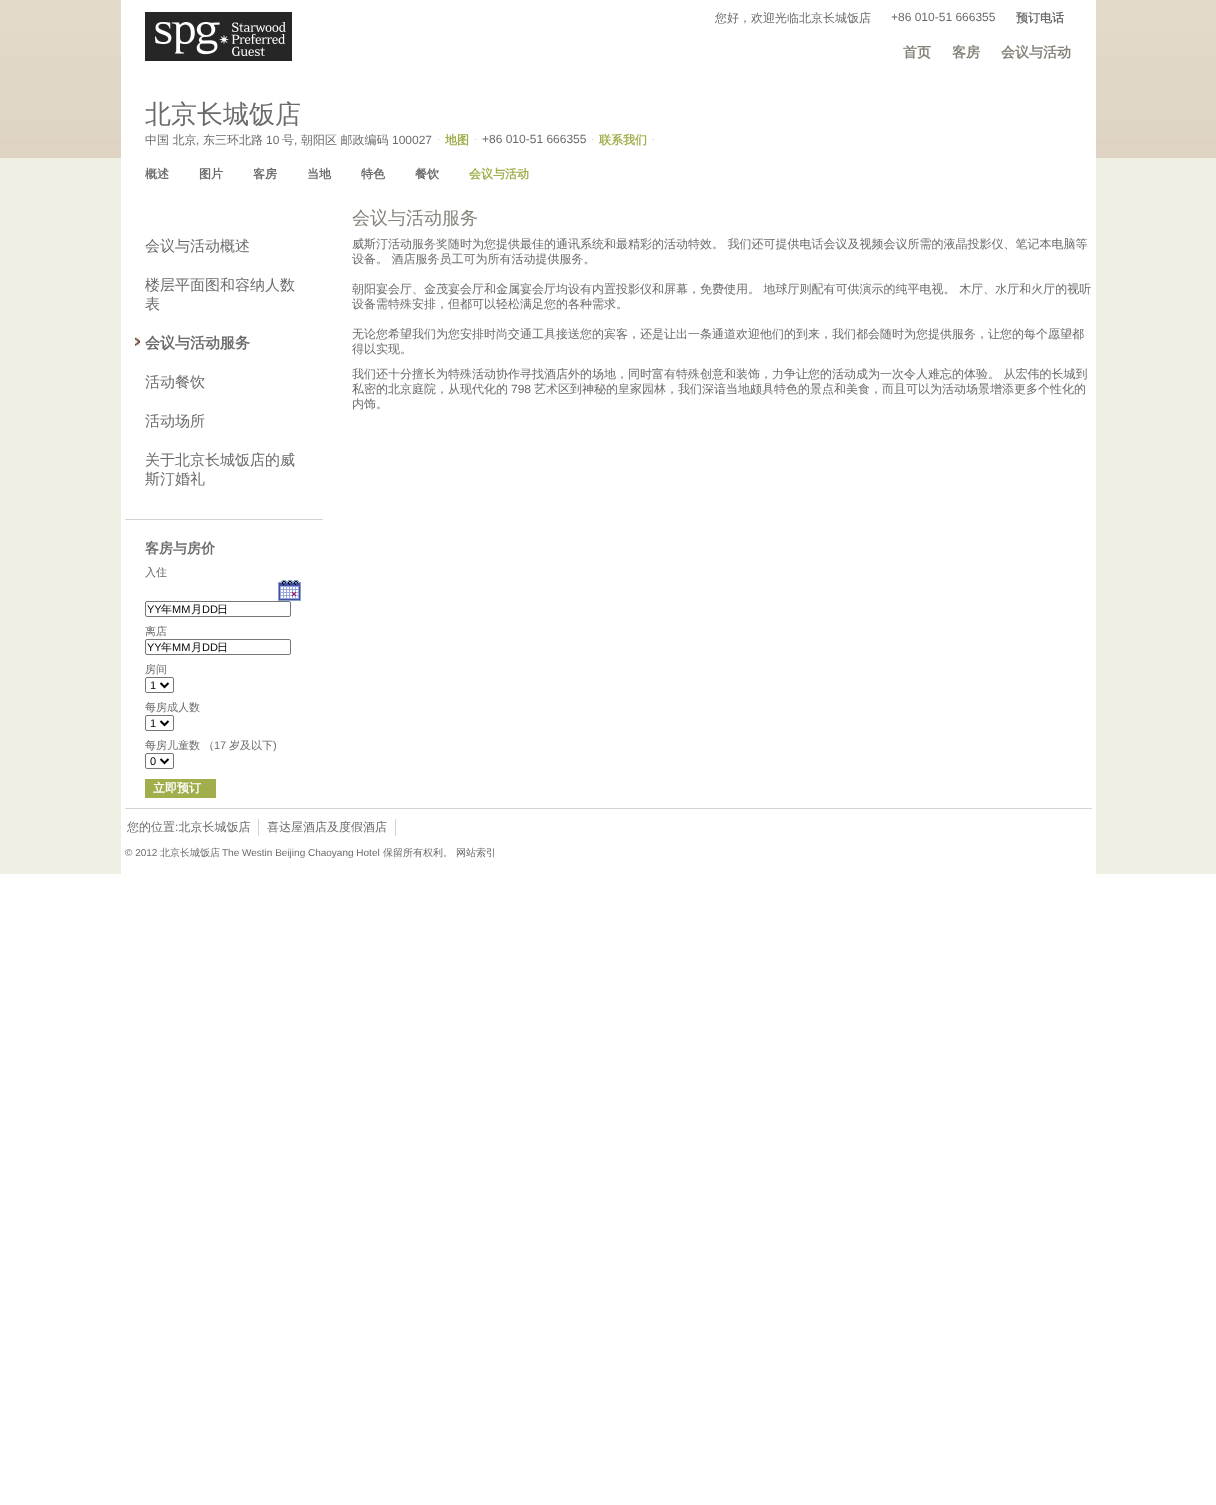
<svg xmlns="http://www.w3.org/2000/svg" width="1216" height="1505">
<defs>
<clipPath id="clip1"><rect x="145" y="166" width="927" height="17"/></clipPath>
</defs>
<rect width="100%" height="100%" fill="#fff"/>
<rect y="158" width="1216" height="716" fill="#efefe4"/>
<image x="0" y="0" width="1216" height="158" href="media/1.png"/>
<rect x="121" width="975" height="874" fill="#fff"/>
<image x="145" y="12" width="147" height="49" href="media/2.png"/>
<text x="715" y="22" style="font-family:WenQuanYi Zen Hei;font-size:12px;font-weight:500;fill:#6b6b6b">您好，欢迎光临北京长城饭店</text>
<text x="891" y="21" style="font-family:Liberation Sans;font-size:12px;fill:#6b6b6b">+86 010-51 666355</text>
<text x="1016" y="22" style="font-family:WenQuanYi Zen Hei;font-size:12px;font-weight:bold;fill:#6b6b6b">预订电话</text>
<text x="903" y="57" style="font-family:WenQuanYi Zen Hei;font-size:14px;font-weight:bold;fill:#858379">首页</text>
<text x="952" y="57" style="font-family:WenQuanYi Zen Hei;font-size:14px;font-weight:bold;fill:#858379">客房</text>
<text x="1001" y="57" style="font-family:WenQuanYi Zen Hei;font-size:14px;font-weight:bold;fill:#858379">会议与活动</text>
<text x="145" y="123" style="font-family:WenQuanYi Zen Hei;font-size:26px;font-weight:500;fill:#6b6b6b">北京长城饭店</text>
<rect x="438" y="139" width="1" height="1" fill="#d7c3ae"/>
<text x="145" y="144" style="font-family:WenQuanYi Zen Hei;font-size:12px;font-weight:500;fill:#6b6b6b">中国 北京</text>
<text x="196" y="144" style="font-family:Liberation Sans;font-size:12px;fill:#6b6b6b">,</text>
<text x="203" y="144" style="font-family:WenQuanYi Zen Hei;font-size:12px;font-weight:500;fill:#6b6b6b">东三环北路</text>
<text x="266" y="144" style="font-family:Liberation Sans;font-size:12px;fill:#6b6b6b">10</text>
<text x="282" y="144" style="font-family:WenQuanYi Zen Hei;font-size:12px;font-weight:500;fill:#6b6b6b">号</text>
<text x="294" y="144" style="font-family:Liberation Sans;font-size:12px;fill:#6b6b6b">,</text>
<text x="301" y="144" style="font-family:WenQuanYi Zen Hei;font-size:12px;font-weight:500;fill:#6b6b6b">朝阳区 邮政编码</text>
<text x="392" y="144" style="font-family:Liberation Sans;font-size:12px;fill:#6b6b6b">100027</text>
<rect x="475" y="139" width="1" height="1" fill="#d7c3ae"/>
<text x="445" y="144" style="font-family:WenQuanYi Zen Hei;font-size:12px;font-weight:bold;fill:#a2ae4c">地图</text>
<rect x="592" y="139" width="1" height="1" fill="#d7c3ae"/>
<text x="482" y="143" style="font-family:Liberation Sans;font-size:12px;fill:#6b6b6b">+86 010-51 666355</text>
<rect x="653" y="139" width="1" height="1" fill="#d7c3ae"/>
<text x="599" y="144" style="font-family:WenQuanYi Zen Hei;font-size:12px;font-weight:bold;fill:#a2ae4c">联系我们</text>
<g clip-path="url(#clip1)">
<text x="145" y="178" style="font-family:WenQuanYi Zen Hei;font-size:12px;font-weight:bold;fill:#6b6b6b">概述</text>
</g>
<text x="199" y="178" style="font-family:WenQuanYi Zen Hei;font-size:12px;font-weight:bold;fill:#6b6b6b">图片</text>
<text x="253" y="178" style="font-family:WenQuanYi Zen Hei;font-size:12px;font-weight:bold;fill:#6b6b6b">客房</text>
<text x="307" y="178" style="font-family:WenQuanYi Zen Hei;font-size:12px;font-weight:bold;fill:#6b6b6b">当地</text>
<text x="361" y="178" style="font-family:WenQuanYi Zen Hei;font-size:12px;font-weight:bold;fill:#6b6b6b">特色</text>
<text x="415" y="178" style="font-family:WenQuanYi Zen Hei;font-size:12px;font-weight:bold;fill:#6b6b6b">餐饮</text>
<text x="469" y="178" style="font-family:WenQuanYi Zen Hei;font-size:12px;font-weight:bold;fill:#a2ae4c">会议与活动</text>
<text x="145" y="251" style="font-family:WenQuanYi Zen Hei;font-size:15px;font-weight:500;fill:#6b6b6b">会议与活动概述</text>
<text x="145" y="290" style="font-family:WenQuanYi Zen Hei;font-size:15px;font-weight:500;fill:#6b6b6b">楼层平面图和容纳人数</text>
<text x="145" y="309" style="font-family:WenQuanYi Zen Hei;font-size:15px;font-weight:500;fill:#6b6b6b">表</text>
<image x="135" y="337" width="5" height="9" href="media/3.png"/>
<text x="145" y="348" style="font-family:WenQuanYi Zen Hei;font-size:15px;font-weight:bold;fill:#6b6b6b">会议与活动服务</text>
<text x="145" y="387" style="font-family:WenQuanYi Zen Hei;font-size:15px;font-weight:500;fill:#6b6b6b">活动餐饮</text>
<text x="145" y="426" style="font-family:WenQuanYi Zen Hei;font-size:15px;font-weight:500;fill:#6b6b6b">活动场所</text>
<text x="145" y="465" style="font-family:WenQuanYi Zen Hei;font-size:15px;font-weight:500;fill:#6b6b6b">关于北京长城饭店的威</text>
<text x="145" y="484" style="font-family:WenQuanYi Zen Hei;font-size:15px;font-weight:500;fill:#6b6b6b">斯汀婚礼</text>
<rect x="125" y="519" width="198" height="1" fill="#d7d3ce"/>
<text x="145" y="553" style="font-family:WenQuanYi Zen Hei;font-size:14px;font-weight:bold;fill:#6b6b6b">客房与房价</text>
<text x="145" y="576" style="font-family:WenQuanYi Zen Hei;font-size:11px;font-weight:500;fill:#6b6b6b">入住</text>
<rect x="145.5" y="601.5" width="145" height="15" rx="1.5" fill="none" stroke="#767676"/>
<text x="147" y="613" style="font-family:Liberation Sans;font-size:11px;fill:#000">YY</text>
<text x="161" y="613" style="font-family:WenQuanYi Zen Hei;font-size:11px;font-weight:500;fill:#000">年</text>
<text x="172" y="613" style="font-family:Liberation Sans;font-size:11px;fill:#000">MM</text>
<text x="191" y="613" style="font-family:WenQuanYi Zen Hei;font-size:11px;font-weight:500;fill:#000">月</text>
<text x="202" y="613" style="font-family:Liberation Sans;font-size:11px;fill:#000">DD</text>
<text x="217" y="613" style="font-family:WenQuanYi Zen Hei;font-size:11px;font-weight:500;fill:#000">日</text>
<image x="278" y="580" width="23" height="21" href="media/4.png"/>
<text x="145" y="635" style="font-family:WenQuanYi Zen Hei;font-size:11px;font-weight:500;fill:#6b6b6b">离店</text>
<rect x="145.5" y="639.5" width="145" height="15" rx="1.5" fill="none" stroke="#767676"/>
<text x="147" y="651" style="font-family:Liberation Sans;font-size:11px;fill:#000">YY</text>
<text x="161" y="651" style="font-family:WenQuanYi Zen Hei;font-size:11px;font-weight:500;fill:#000">年</text>
<text x="172" y="651" style="font-family:Liberation Sans;font-size:11px;fill:#000">MM</text>
<text x="191" y="651" style="font-family:WenQuanYi Zen Hei;font-size:11px;font-weight:500;fill:#000">月</text>
<text x="202" y="651" style="font-family:Liberation Sans;font-size:11px;fill:#000">DD</text>
<text x="217" y="651" style="font-family:WenQuanYi Zen Hei;font-size:11px;font-weight:500;fill:#000">日</text>
<text x="145" y="673" style="font-family:WenQuanYi Zen Hei;font-size:11px;font-weight:500;fill:#6b6b6b">房间</text>
<rect x="145.5" y="677.5" width="28" height="15" rx="1.5" fill="none" stroke="#767676"/>
<path d="M160.5 683l4 4l4-4" fill="none" stroke="#000" stroke-width="2"/>
<text x="150" y="689" style="font-family:Liberation Sans;font-size:11px;fill:#000">1</text>
<text x="145" y="711" style="font-family:WenQuanYi Zen Hei;font-size:11px;font-weight:500;fill:#6b6b6b">每房成人数</text>
<rect x="145.5" y="715.5" width="28" height="15" rx="1.5" fill="none" stroke="#767676"/>
<path d="M160.5 721l4 4l4-4" fill="none" stroke="#000" stroke-width="2"/>
<text x="150" y="727" style="font-family:Liberation Sans;font-size:11px;fill:#000">1</text>
<text x="145" y="749" style="font-family:WenQuanYi Zen Hei;font-size:11px;font-weight:500;fill:#6b6b6b">每房儿童数 （</text>
<text x="214" y="749" style="font-family:Liberation Sans;font-size:11px;fill:#6b6b6b">17</text>
<text x="229" y="749" style="font-family:WenQuanYi Zen Hei;font-size:11px;font-weight:500;fill:#6b6b6b">岁及以下</text>
<text x="273" y="749" style="font-family:Liberation Sans;font-size:11px;fill:#6b6b6b">)</text>
<rect x="145.5" y="753.5" width="28" height="15" rx="1.5" fill="none" stroke="#767676"/>
<path d="M160.5 759l4 4l4-4" fill="none" stroke="#000" stroke-width="2"/>
<text x="150" y="765" style="font-family:Liberation Sans;font-size:11px;fill:#000">0</text>
<rect x="145" y="779" width="71" height="19" fill="#a2ae4c"/>
<text x="153" y="792" style="font-family:WenQuanYi Zen Hei;font-size:12px;font-weight:bold;fill:#fff">立即预订</text>
<text x="352" y="224" style="font-family:WenQuanYi Zen Hei;font-size:18px;font-weight:500;fill:#858379">会议与活动服务</text>
<text x="352" y="248" style="font-family:WenQuanYi Zen Hei;font-size:12px;font-weight:500;fill:#6b6b6b">威斯汀活动服务奖随时为您提供最佳的通讯系统和最精彩的活动特效。 我们还可提供电话会议及视频会议所需的液晶投影仪、笔记本电脑等</text>
<text x="352" y="263" style="font-family:WenQuanYi Zen Hei;font-size:12px;font-weight:500;fill:#6b6b6b">设备。 酒店服务员工可为所有活动提供服务。</text>
<text x="352" y="293" style="font-family:WenQuanYi Zen Hei;font-size:12px;font-weight:500;fill:#6b6b6b">朝阳宴会厅、金茂宴会厅和金属宴会厅均设有内置投影仪和屏幕，免费使用。 地球厅则配有可供演示的纯平电视。 木厅、水厅和火厅的视听</text>
<text x="352" y="308" style="font-family:WenQuanYi Zen Hei;font-size:12px;font-weight:500;fill:#6b6b6b">设备需特殊安排，但都可以轻松满足您的各种需求。</text>
<text x="352" y="338" style="font-family:WenQuanYi Zen Hei;font-size:12px;font-weight:500;fill:#6b6b6b">无论您希望我们为您安排时尚交通工具接送您的宾客，还是让出一条通道欢迎他们的到来，我们都会随时为您提供服务，让您的每个愿望都</text>
<text x="352" y="353" style="font-family:WenQuanYi Zen Hei;font-size:12px;font-weight:500;fill:#6b6b6b">得以实现。</text>
<text x="352" y="378" style="font-family:WenQuanYi Zen Hei;font-size:12px;font-weight:500;fill:#6b6b6b">我们还十分擅长为特殊活动协作寻找酒店外的场地，同时富有特殊创意和装饰，力争让您的活动成为一次令人难忘的体验。 从宏伟的长城到</text>
<text x="352" y="393" style="font-family:WenQuanYi Zen Hei;font-size:12px;font-weight:500;fill:#6b6b6b">私密的北京庭院，从现代化的</text>
<text x="511" y="393" style="font-family:Liberation Sans;font-size:12px;fill:#6b6b6b">798</text>
<text x="534" y="393" style="font-family:WenQuanYi Zen Hei;font-size:12px;font-weight:500;fill:#6b6b6b">艺术区到神秘的皇家园林，我们深谙当地颇具特色的景点和美食，而且可以为活动场景增添更多个性化的</text>
<text x="352" y="408" style="font-family:WenQuanYi Zen Hei;font-size:12px;font-weight:500;fill:#6b6b6b">内饰。</text>
<rect x="125" y="808" width="967" height="1" fill="#d7d3ce"/>
<rect x="258" y="819" width="1" height="17" fill="#d7d3ce"/>
<text x="127" y="831" style="font-family:WenQuanYi Zen Hei;font-size:12px;font-weight:500;fill:#6b6b6b">您的位置 北京长城饭店</text>
<text x="175" y="831" style="font-family:Liberation Sans;font-size:12px;fill:#6b6b6b">:</text>
<rect x="395" y="819" width="1" height="17" fill="#d7d3ce"/>
<text x="267" y="831" style="font-family:WenQuanYi Zen Hei;font-size:12px;font-weight:500;fill:#6b6b6b">喜达屋酒店及度假酒店</text>
<text x="125" y="856" style="font-family:Liberation Sans;font-size:10px;fill:#6b6b6b">© 2012</text>
<text x="160" y="856" style="font-family:WenQuanYi Zen Hei;font-size:10px;font-weight:500;fill:#6b6b6b">北京长城饭店</text>
<text x="222" y="856" style="font-family:Liberation Sans;font-size:10px;fill:#6b6b6b">The Westin Beijing Chaoyang Hotel</text>
<text x="383" y="856" style="font-family:WenQuanYi Zen Hei;font-size:10px;font-weight:500;fill:#6b6b6b">保留所有权利。 网站索引</text>
</svg>
